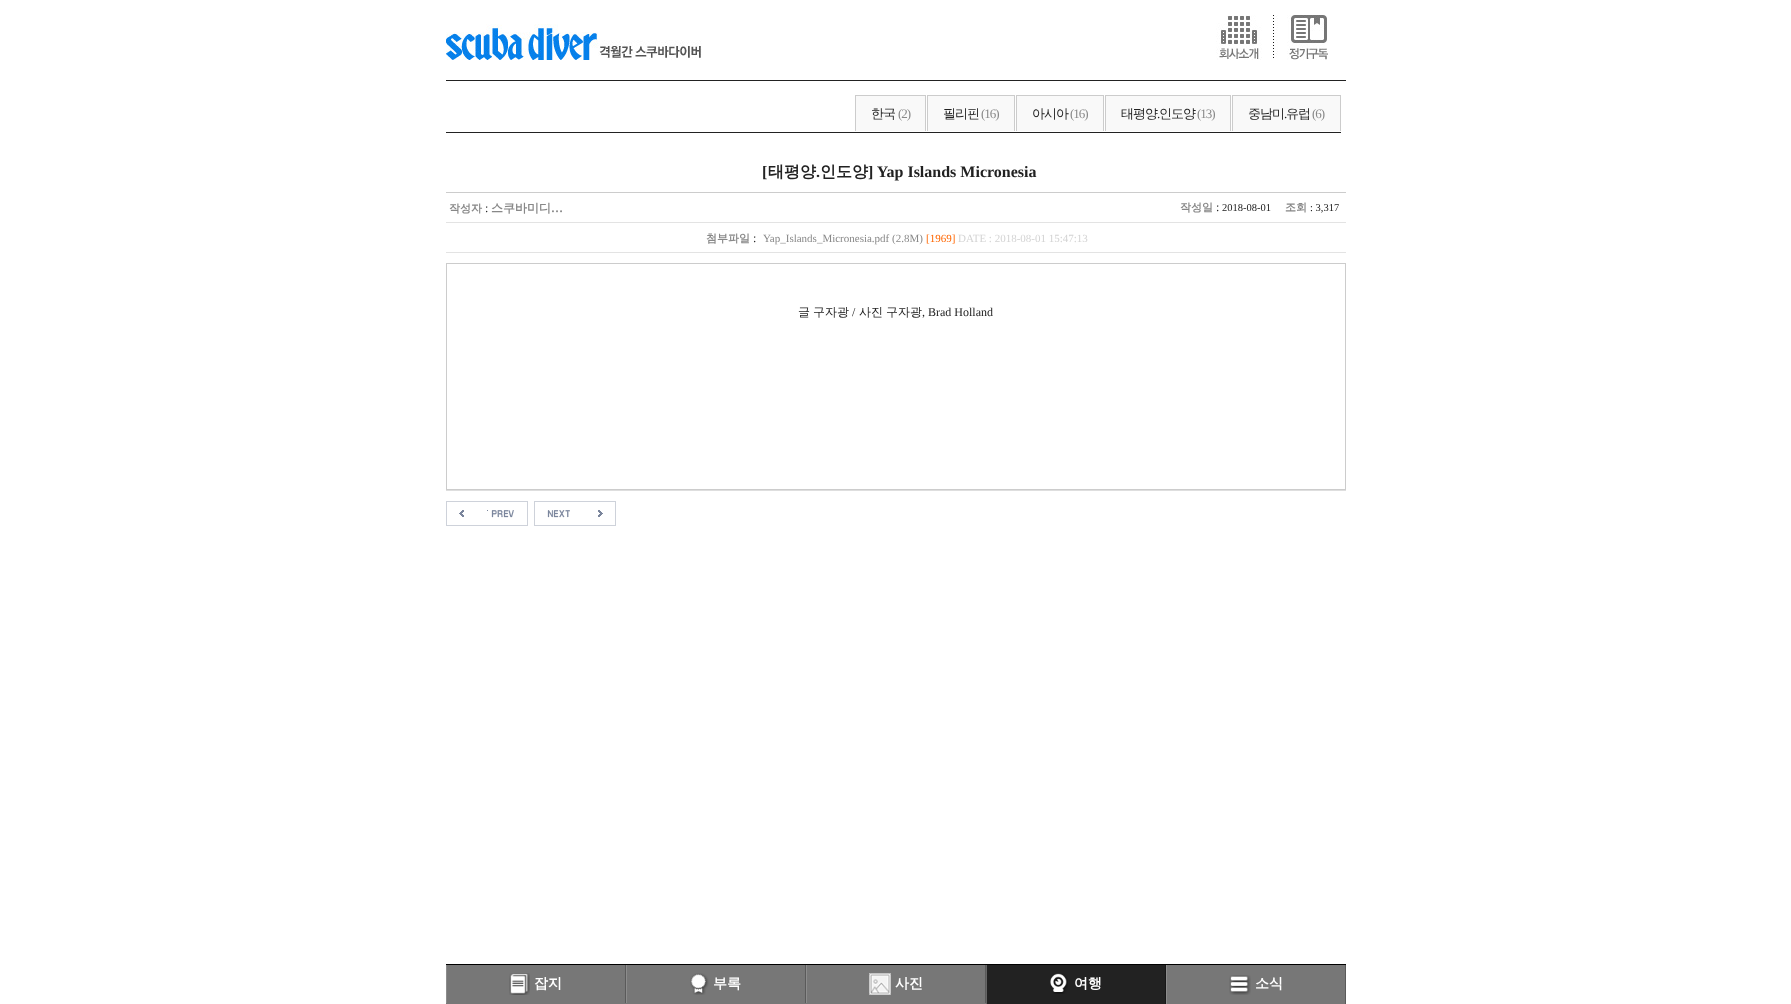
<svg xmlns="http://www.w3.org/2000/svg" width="1791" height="1004">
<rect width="100%" height="100%" fill="#fff"/>
<rect x="446" y="80" width="900" height="1" fill="#222"/>
<image x="446" y="24" width="256" height="36" href="media/1.png"/>
<image x="1216" y="15" width="46" height="45" href="media/2.png"/>
<image x="1273" y="15" width="5" height="43" href="media/3.png"/>
<image x="1287" y="15" width="41" height="45" href="media/4.png"/>
<rect x="446" y="132" width="895" height="1" fill="#222"/>
<rect x="856" y="96" width="69" height="35" fill="#f9f9f9"/>
<text x="871" y="118" style="font-family:WenQuanYi Zen Hei;font-size:13px;font-weight:500;letter-spacing:-1px;fill:#222">한국</text>
<rect x="855" y="95" width="71" height="1" fill="#ccc"/>
<rect x="855" y="95" width="1" height="36" fill="#ccc"/>
<text x="898" y="118" style="font-family:Liberation Serif;font-size:13px;letter-spacing:-1px;fill:#888">(2)</text>
<rect x="925" y="95" width="1" height="36" fill="#ccc"/>
<rect x="928" y="96" width="86" height="35" fill="#f9f9f9"/>
<text x="943" y="118" style="font-family:WenQuanYi Zen Hei;font-size:13px;font-weight:500;letter-spacing:-1px;fill:#222">필리핀</text>
<rect x="927" y="95" width="88" height="1" fill="#ccc"/>
<rect x="927" y="95" width="1" height="36" fill="#ccc"/>
<text x="981" y="118" style="font-family:Liberation Serif;font-size:13px;letter-spacing:-1px;fill:#888">(16)</text>
<rect x="1014" y="95" width="1" height="36" fill="#ccc"/>
<rect x="1017" y="96" width="86" height="35" fill="#f9f9f9"/>
<text x="1032" y="118" style="font-family:WenQuanYi Zen Hei;font-size:13px;font-weight:500;letter-spacing:-1px;fill:#222">아시아</text>
<rect x="1016" y="95" width="88" height="1" fill="#ccc"/>
<rect x="1016" y="95" width="1" height="36" fill="#ccc"/>
<text x="1070" y="118" style="font-family:Liberation Serif;font-size:13px;letter-spacing:-1px;fill:#888">(16)</text>
<rect x="1103" y="95" width="1" height="36" fill="#ccc"/>
<rect x="1106" y="96" width="124" height="35" fill="#f9f9f9"/>
<text x="1121" y="118" style="font-family:WenQuanYi Zen Hei;font-size:13px;font-weight:500;letter-spacing:-1px;fill:#222">태평양</text>
<rect x="1105" y="95" width="126" height="1" fill="#ccc"/>
<rect x="1105" y="95" width="1" height="36" fill="#ccc"/>
<text x="1157" y="118" style="font-family:Liberation Serif;font-size:13px;letter-spacing:-1px;fill:#222">.</text>
<text x="1159" y="118" style="font-family:WenQuanYi Zen Hei;font-size:13px;font-weight:500;letter-spacing:-1px;fill:#222">인도양</text>
<text x="1197" y="118" style="font-family:Liberation Serif;font-size:13px;letter-spacing:-1px;fill:#888">(13)</text>
<rect x="1230" y="95" width="1" height="36" fill="#ccc"/>
<rect x="1233" y="96" width="107" height="35" fill="#f9f9f9"/>
<text x="1248" y="118" style="font-family:WenQuanYi Zen Hei;font-size:13px;font-weight:500;letter-spacing:-1px;fill:#222">중남미</text>
<rect x="1232" y="95" width="109" height="1" fill="#ccc"/>
<rect x="1232" y="95" width="1" height="36" fill="#ccc"/>
<text x="1284" y="118" style="font-family:Liberation Serif;font-size:13px;letter-spacing:-1px;fill:#222">.</text>
<text x="1286" y="118" style="font-family:WenQuanYi Zen Hei;font-size:13px;font-weight:500;letter-spacing:-1px;fill:#222">유럽</text>
<text x="1312" y="118" style="font-family:Liberation Serif;font-size:13px;letter-spacing:-1px;fill:#888">(6)</text>
<rect x="1340" y="95" width="1" height="36" fill="#ccc"/>
<rect x="446" y="192" width="900" height="1" fill="#ccc"/>
<text x="762" y="177" style="font-family:Liberation Serif;font-size:16px;font-weight:bold;fill:#222">[</text>
<text x="768" y="177" style="font-family:WenQuanYi Zen Hei;font-size:16px;font-weight:bold;fill:#222">태평양</text>
<text x="816" y="177" style="font-family:Liberation Serif;font-size:16px;font-weight:bold;fill:#222">.</text>
<text x="820" y="177" style="font-family:WenQuanYi Zen Hei;font-size:16px;font-weight:bold;fill:#222">인도양</text>
<text x="868" y="177" style="font-family:Liberation Serif;font-size:16px;font-weight:bold;fill:#222">] Yap Islands Micronesia</text>
<rect x="446" y="222" width="900" height="1" fill="#e3e3e3"/>
<text x="449" y="212" style="font-family:WenQuanYi Zen Hei;font-size:11px;font-weight:bold;fill:#888">작성자</text>
<text x="485" y="212" style="font-family:Liberation Serif;font-size:12px;fill:#222">:</text>
<text x="491" y="212" style="font-family:WenQuanYi Zen Hei;font-size:12px;font-weight:bold;fill:#888">스쿠바미디</text>
<text x="551" y="212" style="font-family:Liberation Serif;font-size:12px;font-weight:bold;fill:#888">…</text>
<text x="1180" y="211" style="font-family:WenQuanYi Zen Hei;font-size:11px;font-weight:bold;fill:#888">작성일</text>
<text x="1216" y="211" style="font-family:Liberation Serif;font-size:12px;fill:#222">:</text>
<text x="1222" y="211" style="font-family:Liberation Serif;font-size:10.5px;fill:#222">2018-08-01</text>
<text x="1285" y="211" style="font-family:WenQuanYi Zen Hei;font-size:11px;font-weight:bold;fill:#888">조회</text>
<text x="1310" y="211" style="font-family:Liberation Serif;font-size:10.5px;fill:#222">: 3,317</text>
<rect x="446" y="252" width="900" height="1" fill="#e3e3e3"/>
<text x="706" y="242" style="font-family:WenQuanYi Zen Hei;font-size:11px;font-weight:bold;fill:#888">첨부파일</text>
<text x="753" y="242" style="font-family:Liberation Serif;font-size:12px;fill:#222">:</text>
<text x="763" y="242" style="font-family:Liberation Serif;font-size:11px;fill:#888">Yap_Islands_Micronesia.pdf (2.8M)</text>
<text x="926" y="242" style="font-family:Liberation Serif;font-size:11px;fill:#f60">[1969]</text>
<text x="958" y="242" style="font-family:Liberation Serif;font-size:11px;fill:#d3d3d3">DATE : 2018-08-01 15:47:13</text>
<rect x="446.5" y="263.5" width="899" height="226" fill="none" stroke="#ccc"/>
<text x="798" y="316" style="font-family:WenQuanYi Zen Hei;font-size:12px;font-weight:500;fill:#222">글</text>
<text x="813" y="316" style="font-family:WenQuanYi Zen Hei;font-size:12px;font-weight:500;fill:#222">구자광</text>
<text x="852" y="316" style="font-family:Liberation Serif;font-size:12px;fill:#222">/</text>
<text x="859" y="316" style="font-family:WenQuanYi Zen Hei;font-size:12px;font-weight:500;fill:#222">사진</text>
<text x="886" y="316" style="font-family:WenQuanYi Zen Hei;font-size:12px;font-weight:500;fill:#222">구자광</text>
<text x="922" y="316" style="font-family:Liberation Serif;font-size:12px;fill:#222">, Brad Holland</text>
<rect x="446" y="490" width="900" height="1" fill="#dedede"/>
<image x="446" y="501" width="82" height="25" href="media/5.png"/>
<image x="534" y="501" width="82" height="25" href="media/6.png"/>
<rect x="446" y="965" width="899" height="39" fill="#777"/>
<rect x="446" y="964" width="900" height="1" fill="#000"/>
<rect x="625" y="965" width="1" height="38" fill="#5a5a5a"/>
<rect x="446" y="965" width="1" height="38" fill="#8c8c8c"/>
<image x="509" y="973" width="21" height="22" href="media/7.png"/>
<text x="534" y="988" style="font-family:WenQuanYi Zen Hei;font-size:14px;font-weight:bold;fill:#fff">잡지</text>
<rect x="805" y="965" width="1" height="38" fill="#5a5a5a"/>
<rect x="626" y="965" width="1" height="38" fill="#8c8c8c"/>
<image x="690" y="973" width="19" height="22" href="media/8.png"/>
<text x="713" y="988" style="font-family:WenQuanYi Zen Hei;font-size:14px;font-weight:bold;fill:#fff">부록</text>
<rect x="985" y="965" width="1" height="38" fill="#5a5a5a"/>
<rect x="806" y="965" width="1" height="38" fill="#8c8c8c"/>
<image x="869" y="973" width="22" height="22" href="media/9.png"/>
<text x="895" y="988" style="font-family:WenQuanYi Zen Hei;font-size:14px;font-weight:bold;fill:#fff">사진</text>
<rect x="987" y="965" width="178" height="39" fill="#222"/>
<rect x="1165" y="965" width="1" height="39" fill="#171717"/>
<rect x="986" y="965" width="1" height="39" fill="#666"/>
<image x="1050" y="973" width="18" height="21" href="media/10.png"/>
<text x="1074" y="988" style="font-family:WenQuanYi Zen Hei;font-size:14px;font-weight:bold;fill:#fff">여행</text>
<rect x="1345" y="965" width="1" height="39" fill="#5a5a5a"/>
<rect x="1166" y="965" width="1" height="39" fill="#8c8c8c"/>
<image x="1229" y="975" width="22" height="20" href="media/11.png"/>
<text x="1255" y="988" style="font-family:WenQuanYi Zen Hei;font-size:14px;font-weight:bold;fill:#fff">소식</text>
</svg>
